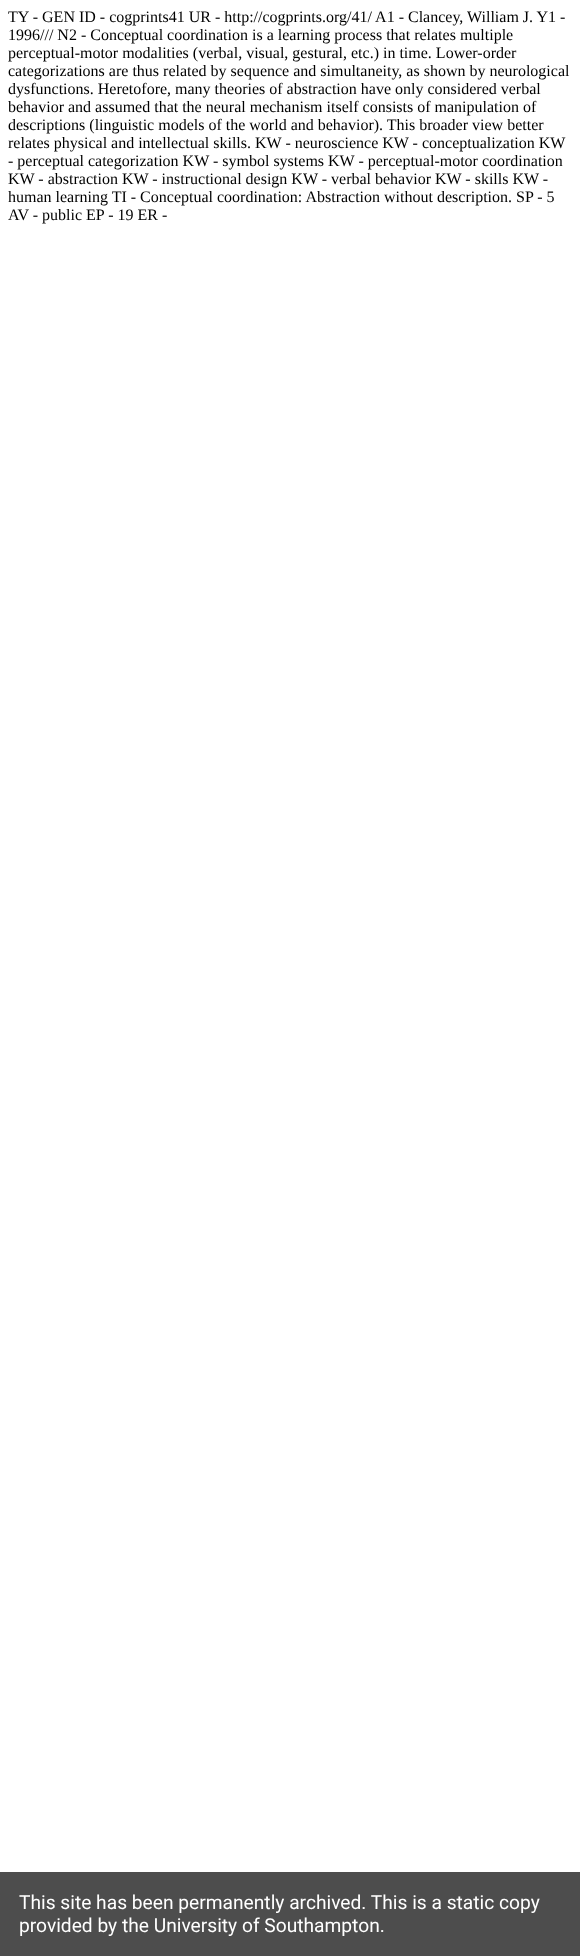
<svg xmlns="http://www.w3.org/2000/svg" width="580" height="1956">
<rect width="100%" height="100%" fill="#fff"/>
<text x="8" y="22" style="font-family:Liberation Serif;font-size:16px;fill:#000">TY - GEN ID - cogprints41 UR - http://cogprints.org/41/ A1 - Clancey, William J. Y1 -</text>
<text x="8" y="40" style="font-family:Liberation Serif;font-size:16px;fill:#000">1996/// N2 - Conceptual coordination is a learning process that relates multiple</text>
<text x="8" y="58" style="font-family:Liberation Serif;font-size:16px;fill:#000">perceptual-motor modalities (verbal, visual, gestural, etc.) in time. Lower-order</text>
<text x="8" y="76" style="font-family:Liberation Serif;font-size:16px;fill:#000">categorizations are thus related by sequence and simultaneity, as shown by neurological</text>
<text x="8" y="94" style="font-family:Liberation Serif;font-size:16px;fill:#000">dysfunctions. Heretofore, many theories of abstraction have only considered verbal</text>
<text x="8" y="112" style="font-family:Liberation Serif;font-size:16px;fill:#000">behavior and assumed that the neural mechanism itself consists of manipulation of</text>
<text x="8" y="130" style="font-family:Liberation Serif;font-size:16px;fill:#000">descriptions (linguistic models of the world and behavior). This broader view better</text>
<text x="8" y="148" style="font-family:Liberation Serif;font-size:16px;fill:#000">relates physical and intellectual skills. KW - neuroscience KW - conceptualization KW</text>
<text x="8" y="166" style="font-family:Liberation Serif;font-size:16px;fill:#000">- perceptual categorization KW - symbol systems KW - perceptual-motor coordination</text>
<text x="8" y="184" style="font-family:Liberation Serif;font-size:16px;fill:#000">KW - abstraction KW - instructional design KW - verbal behavior KW - skills KW -</text>
<text x="8" y="202" style="font-family:Liberation Serif;font-size:16px;fill:#000">human learning TI - Conceptual coordination: Abstraction without description. SP - 5</text>
<text x="8" y="220" style="font-family:Liberation Serif;font-size:16px;fill:#000">AV - public EP - 19 ER -</text>
<rect y="1872" width="580" height="84" fill="#4d4d4d"/>
<text x="19" y="1909" style="font-family:Roboto;font-size:19.2px;fill:#fff">This site has been permanently archived. This is a static copy</text>
<text x="19" y="1932" style="font-family:Roboto;font-size:19.2px;fill:#fff">provided by the University of Southampton.</text>
</svg>
